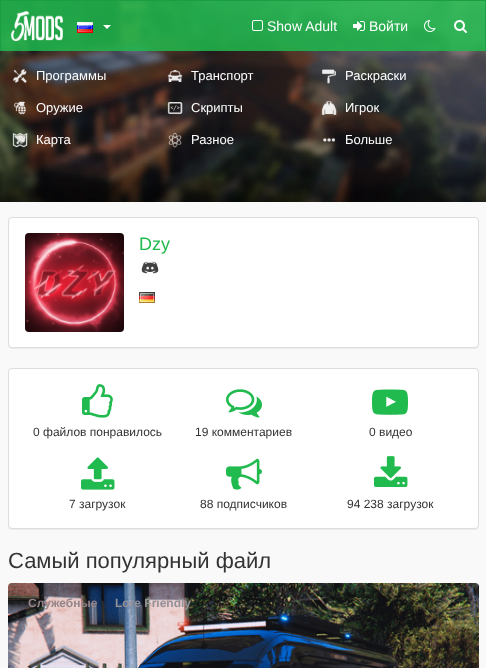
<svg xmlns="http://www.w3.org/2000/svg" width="486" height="668">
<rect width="100%" height="100%" fill="#f9f9f9"/>
<image x="0" y="1" width="486" height="201" href="media/7.png"/>
<rect x="1" y="1" width="484" height="50" fill="#20ba4ed9"/>
<rect width="486" height="1" fill="#1b9e42"/>
<rect x="485" width="1" height="51" fill="#1b9e42"/>
<rect width="1" height="51" fill="#1b9e42"/>
<image x="11" y="11" width="52" height="30" href="media/1.png"/>
<image x="77" y="22" width="16" height="11" href="media/2.png"/>
<path d="M103 25h8l-4 4z" fill="#fff"/>
<image x="252" y="20" width="11" height="11" href="media/3.png"/>
<text x="267" y="31" style="font-family:Liberation Sans;font-size:14px;fill:#fff">Show Adult</text>
<image x="353" y="21" width="12" height="10" href="media/4.png"/>
<text x="369" y="31" style="font-family:Liberation Sans;font-size:14px;fill:#fff">Войти</text>
<image x="424" y="20" width="12" height="12" href="media/5.png"/>
<image x="454" y="20" width="13" height="13" href="media/6.png"/>
<image x="13" y="69" width="14" height="14" href="media/8.png"/>
<text x="36" y="80" style="font-family:Liberation Sans;font-size:13px;fill:#fff">Программы</text>
<image x="167" y="70" width="16" height="12" href="media/9.png"/>
<text x="191" y="80" style="font-family:Liberation Sans;font-size:13px;fill:#fff">Транспорт</text>
<image x="322" y="69" width="14" height="15" href="media/10.png"/>
<text x="345" y="80" style="font-family:Liberation Sans;font-size:13px;fill:#fff">Раскраски</text>
<image x="14" y="101" width="12" height="14" href="media/11.png"/>
<text x="36" y="112" style="font-family:Liberation Sans;font-size:13px;fill:#fff">Оружие</text>
<image x="167" y="102" width="16" height="12" href="media/12.png"/>
<text x="191" y="112" style="font-family:Liberation Sans;font-size:13px;fill:#fff">Скрипты</text>
<image x="321" y="101" width="16" height="14" href="media/13.png"/>
<text x="345" y="112" style="font-family:Liberation Sans;font-size:13px;fill:#fff">Игрок</text>
<image x="12" y="132" width="16" height="16" href="media/14.png"/>
<text x="36" y="144" style="font-family:Liberation Sans;font-size:13px;fill:#fff">Карта</text>
<image x="168" y="132" width="14" height="16" href="media/15.png"/>
<text x="191" y="144" style="font-family:Liberation Sans;font-size:13px;fill:#fff">Разное</text>
<image x="323" y="138" width="12" height="4" href="media/16.png"/>
<text x="345" y="144" style="font-family:Liberation Sans;font-size:13px;fill:#fff">Больше</text>
<rect x="8" y="218" width="471" height="131" rx="4" fill="#0000000d" filter="blur(0.5px)"/>
<rect x="8.5" y="217.5" width="470" height="130" rx="3.5" fill="#fff" stroke="#ddd"/>
<image x="25" y="233" width="99" height="99" href="media/17.png"/>
<text x="139" y="250" style="font-family:Liberation Sans;font-size:18px;fill:#20ba4e">Dzy</text>
<image x="141" y="261" width="18" height="13" href="media/18.png"/>
<image x="139" y="292" width="16" height="11" href="media/19.png"/>
<rect x="8" y="369" width="471" height="161" rx="4" fill="#0000000d" filter="blur(0.5px)"/>
<rect x="8.5" y="368.5" width="470" height="160" rx="3.5" fill="#fff" stroke="#ddd"/>
<image x="82" y="384" width="31" height="34" href="media/20.png"/>
<text x="33" y="436" style="font-family:Liberation Sans;font-size:12px;fill:#333">0 файлов понравилось</text>
<image x="226" y="389" width="36" height="29" href="media/21.png"/>
<text x="195" y="436" style="font-family:Liberation Sans;font-size:12px;fill:#333">19 комментариев</text>
<image x="372" y="389" width="36" height="26" href="media/22.png"/>
<text x="369" y="436" style="font-family:Liberation Sans;font-size:12px;fill:#333">0 видео</text>
<image x="81" y="457" width="34" height="33" href="media/23.png"/>
<text x="69" y="508" style="font-family:Liberation Sans;font-size:12px;fill:#333">7 загрузок</text>
<image x="226" y="458" width="36" height="32" href="media/24.png"/>
<text x="200" y="508" style="font-family:Liberation Sans;font-size:12px;fill:#333">88 подписчиков</text>
<image x="374" y="456" width="34" height="31" href="media/25.png"/>
<text x="347" y="508" style="font-family:Liberation Sans;font-size:12px;fill:#333">94 238 загрузок</text>
<text x="8" y="568" style="font-family:Liberation Sans;font-size:22px;fill:#333">Самый популярный файл</text>
<image x="8" y="583" width="471" height="85" href="media/26.png"/>
<text x="28" y="607" style="font-family:Liberation Sans;font-size:12px;font-weight:bold;fill:#958588">Служебные</text>
<text x="115" y="607" style="font-family:Liberation Sans;font-size:12px;font-weight:bold;fill:#949199">Lore Friendly</text>
</svg>
